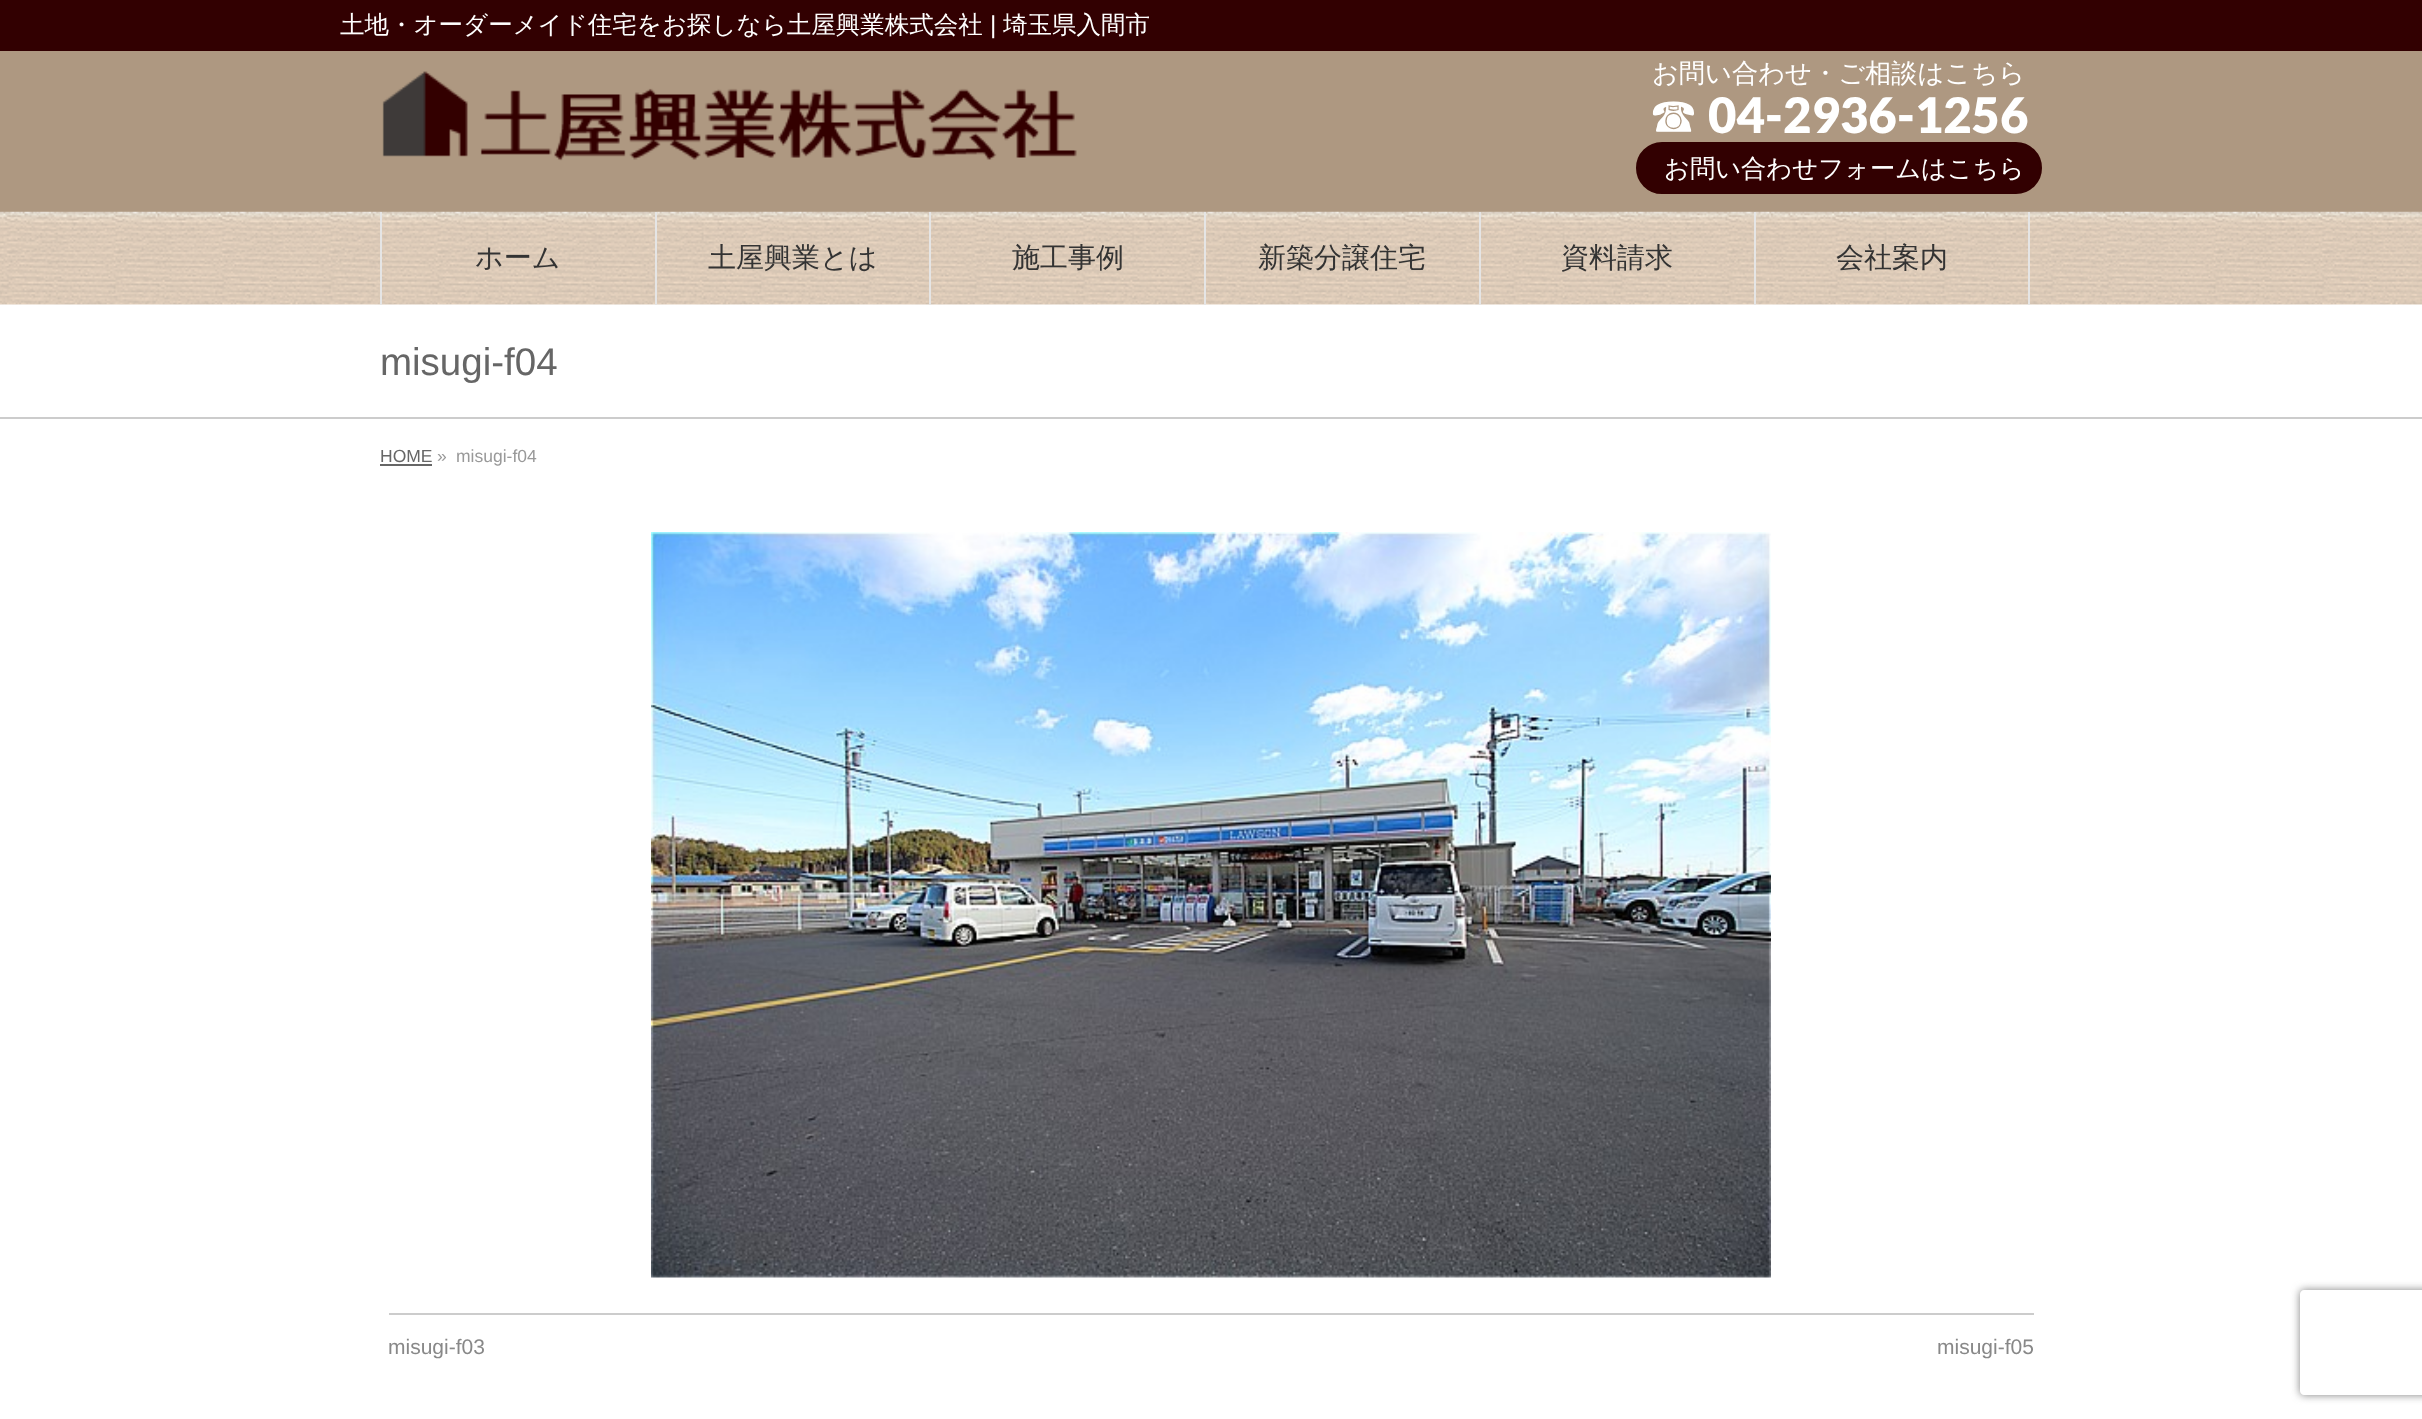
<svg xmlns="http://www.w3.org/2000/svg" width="2422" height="1419">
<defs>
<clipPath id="clip1"><path d="M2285 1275h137v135h-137zm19 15h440c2 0 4 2 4 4v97c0 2-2 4-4 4h-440c-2 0-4-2-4-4v-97c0-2 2-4 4-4z" clip-rule="evenodd"/></clipPath>
</defs>
<rect width="100%" height="100%" fill="#fff"/>
<rect y="51" width="2422" height="161" fill="#ae9881"/>
<rect width="2422" height="51" fill="#320001"/>
<text x="340" y="33" style="font-family:WenQuanYi Zen Hei;font-size:24.5px;font-weight:500;fill:#fff">土地・オーダーメイド住宅をお探しなら土屋興業株式会社</text>
<text x="990" y="33" style="font-family:Liberation Sans;font-size:24.5px;fill:#fff">|</text>
<text x="1003" y="33" style="font-family:WenQuanYi Zen Hei;font-size:24.5px;font-weight:500;fill:#fff">埼玉県入間市</text>
<image x="382" y="71" width="695" height="90" href="media/1.png"/>
<text x="1652" y="82" style="font-family:WenQuanYi Zen Hei;font-size:26.25px;font-weight:500;fill:#fff">お問い合わせ・ご相談はこちら</text>
<text x="1649" y="133" style="font-family:WenQuanYi Zen Hei;font-size:49px;font-weight:500;fill:#fff">☎︎</text>
<text x="1708" y="133" style="font-family:Lato;font-size:49px;font-weight:900;fill:#fff">04-2936-1256</text>
<rect x="1637" y="143" width="404" height="50" rx="25" fill="#320001" stroke="#320001" stroke-width="2"/>
<text x="1664" y="177" style="font-family:WenQuanYi Zen Hei;font-size:25.3px;font-weight:500;fill:#fff">お問い合わせフォームはこちら</text>
<image x="0" y="211" width="2422" height="94" href="media/2.png"/>
<rect x="380" y="212" width="2" height="93" fill="#e5e5e5"/>
<rect x="655" y="212" width="2" height="93" fill="#e5e5e5"/>
<text x="475" y="267" style="font-family:WenQuanYi Zen Hei;font-size:28px;font-weight:500;fill:#333">ホーム</text>
<rect x="929" y="212" width="2" height="93" fill="#e5e5e5"/>
<text x="708" y="267" style="font-family:WenQuanYi Zen Hei;font-size:28px;font-weight:500;fill:#333">土屋興業とは</text>
<rect x="1204" y="212" width="2" height="93" fill="#e5e5e5"/>
<text x="1012" y="267" style="font-family:WenQuanYi Zen Hei;font-size:28px;font-weight:500;fill:#333">施工事例</text>
<rect x="1479" y="212" width="2" height="93" fill="#e5e5e5"/>
<text x="1258" y="267" style="font-family:WenQuanYi Zen Hei;font-size:28px;font-weight:500;fill:#333">新築分譲住宅</text>
<rect x="1754" y="212" width="2" height="93" fill="#e5e5e5"/>
<text x="1561" y="267" style="font-family:WenQuanYi Zen Hei;font-size:28px;font-weight:500;fill:#333">資料請求</text>
<rect x="2028" y="212" width="2" height="93" fill="#e5e5e5"/>
<text x="1836" y="267" style="font-family:WenQuanYi Zen Hei;font-size:28px;font-weight:500;fill:#333">会社案内</text>
<rect y="417" width="2422" height="2" fill="#ccc"/>
<text x="380" y="375" style="font-family:Liberation Sans;font-size:38.5px;fill:#666">misugi-f04</text>
<text x="380" y="462" style="font-family:Liberation Sans;font-size:17.5px;fill:#666">HOME</text>
<rect x="380" y="464" width="52" height="2" fill="#666"/>
<text x="437" y="462" style="font-family:Liberation Sans;font-size:17.5px;fill:#999">»</text>
<text x="456" y="462" style="font-family:Liberation Sans;font-size:17.5px;fill:#999">misugi-f04</text>
<image x="651" y="532" width="1120" height="746" href="media/3.png"/>
<rect x="389" y="1313" width="1645" height="2" fill="#ccc"/>
<text x="388" y="1354" style="font-family:Liberation Sans;font-size:21px;fill:#888">misugi-f03</text>
<text x="1937" y="1354" style="font-family:Liberation Sans;font-size:21px;fill:#888">misugi-f05</text>
<g clip-path="url(#clip1)">
<rect x="2300" y="1290" width="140" height="105" rx="4" fill="#808080" filter="blur(4.5px)"/>
</g>
</svg>
